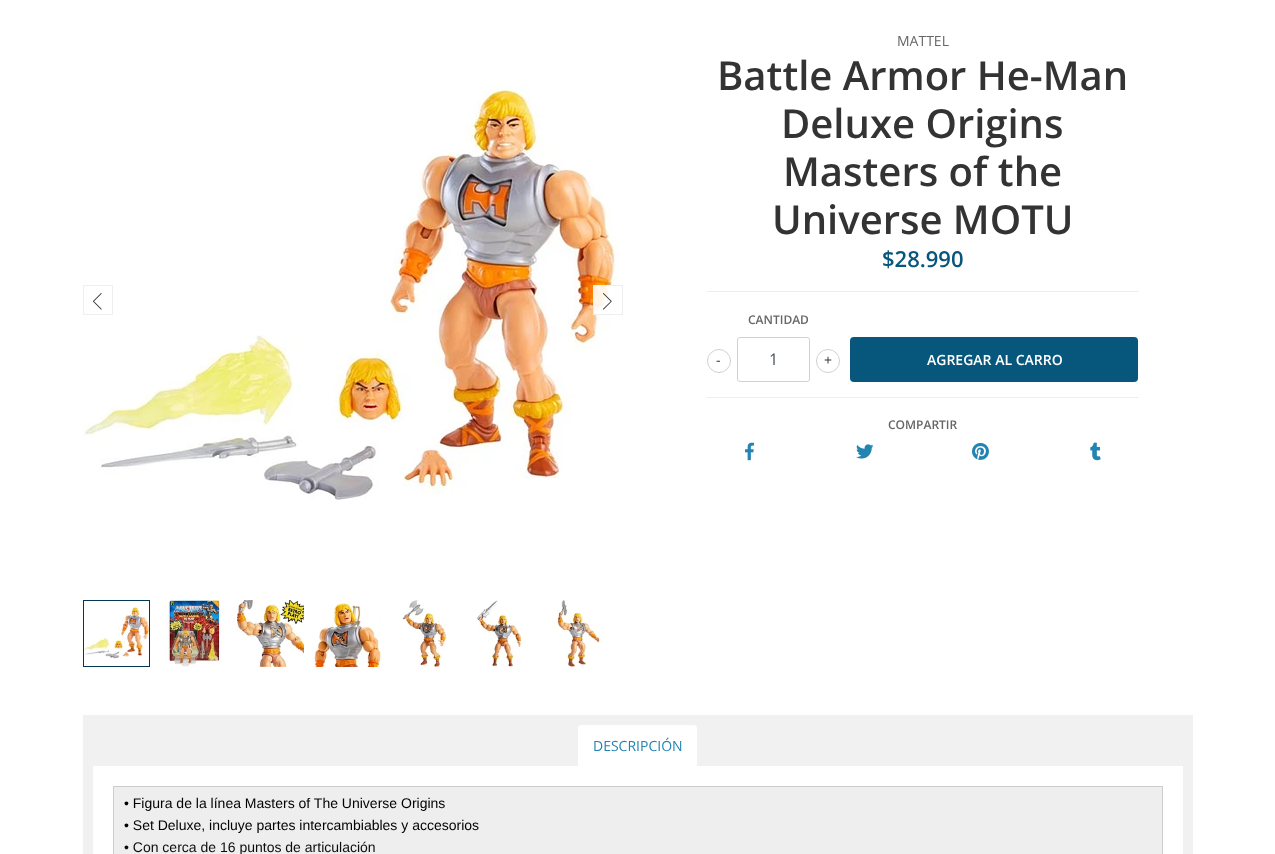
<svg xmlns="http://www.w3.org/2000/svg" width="1275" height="854">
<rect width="100%" height="100%" fill="#fff"/>
<image x="83" y="86" width="536" height="414" href="media/1.png"/>
<rect x="83.5" y="285.5" width="29" height="29" fill="none" stroke="#eee"/>
<image x="93" y="293" width="9" height="17" href="media/2.png"/>
<rect x="594" y="286" width="25" height="28" fill="#ffffffe6"/>
<rect x="593.5" y="285.5" width="29" height="29" fill="none" stroke="#eee"/>
<image x="603" y="293" width="9" height="17" href="media/3.png"/>
<image x="84" y="605" width="65" height="54" href="media/4.png"/>
<rect x="83.5" y="600.5" width="66" height="66" fill="none" stroke="#043852"/>
<image x="165" y="600" width="57" height="67" href="media/5.png"/>
<image x="237" y="600" width="67" height="67" href="media/6.png"/>
<image x="314" y="600" width="67" height="67" href="media/7.png"/>
<image x="402" y="600" width="48" height="67" href="media/8.png"/>
<image x="476" y="600" width="46" height="67" href="media/9.png"/>
<image x="556" y="600" width="46" height="67" href="media/10.png"/>
<rect x="707" y="291" width="432" height="1" fill="#eee"/>
<text x="897" y="46" style="font-family:Open Sans;font-size:14px;fill:#666">MATTEL</text>
<text x="717" y="90" style="font-family:Open Sans;font-size:40px;font-weight:600;fill:#333">Battle Armor He-Man</text>
<text x="781" y="138" style="font-family:Open Sans;font-size:40px;font-weight:600;fill:#333">Deluxe Origins</text>
<text x="783" y="186" style="font-family:Open Sans;font-size:40px;font-weight:600;fill:#333">Masters of the</text>
<text x="772" y="234" style="font-family:Open Sans;font-size:40px;font-weight:600;fill:#333">Universe MOTU</text>
<text x="882" y="267" style="font-family:Open Sans;font-size:22px;font-weight:600;fill:#07577c">$28.990</text>
<rect x="707" y="397" width="432" height="1" fill="#eee"/>
<text x="748" y="324" style="font-family:Open Sans;font-size:12px;font-weight:600;fill:#666">CANTIDAD</text>
<rect x="737.5" y="337.5" width="72" height="44" rx="2.5" fill="none" stroke="#d1d1d1"/>
<text x="769" y="365" style="font-family:Open Sans;font-size:16px;fill:#495057">1</text>
<circle cx="719" cy="361" r="11.5" fill="none" stroke="#d1d1d1"/>
<text x="716" y="365" style="font-family:Open Sans;font-size:14px;fill:#333">-</text>
<circle cx="828" cy="361" r="11.5" fill="none" stroke="#d1d1d1"/>
<text x="824" y="365" style="font-family:Open Sans;font-size:14px;fill:#333">+</text>
<rect x="850" y="337" width="288" height="45" rx="4" fill="#07577c"/>
<text x="927" y="365" style="font-family:Open Sans;font-size:14px;font-weight:600;fill:#fff">AGREGAR AL CARRO</text>
<text x="888" y="429" style="font-family:Open Sans;font-size:12px;font-weight:600;fill:#666">COMPARTIR</text>
<image x="745" y="442" width="10" height="19" href="media/11.png"/>
<image x="856" y="444" width="18" height="15" href="media/12.png"/>
<image x="972" y="443" width="17" height="17" href="media/13.png"/>
<image x="1090" y="442" width="11" height="19" href="media/14.png"/>
<rect x="83" y="715" width="1110" height="139" fill="#f1f1f1"/>
<path d="M581 725h113c1.5 0 3 1.5 3 3v38h-119v-38c0-1.5 1.5-3 3-3z" fill="#fff"/>
<text x="593" y="751" style="font-family:Open Sans;font-size:14px;fill:#2384b2">DESCRIPCIÓN</text>
<rect x="93" y="766" width="1090" height="88" fill="#fff"/>
<rect x="113.5" y="786.5" width="1049" height="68" fill="#eee" stroke="#ccc"/>
<text x="124" y="808" style="font-family:Liberation Sans;font-size:14px;fill:#000">• Figura de la línea Masters of The Universe Origins</text>
<text x="124" y="830" style="font-family:Liberation Sans;font-size:14px;fill:#000">• Set Deluxe, incluye partes intercambiables y accesorios</text>
<text x="124" y="852" style="font-family:Liberation Sans;font-size:14px;fill:#0c0c0c">• Con cerca de 16 puntos de articulación</text>
</svg>
